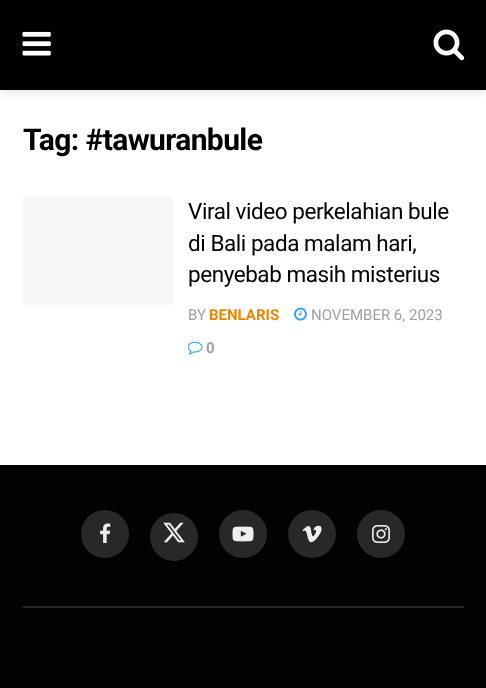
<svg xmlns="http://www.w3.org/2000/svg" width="486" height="688">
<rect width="100%" height="100%" fill="#020202"/>
<rect y="90" width="486" height="375" fill="#fff"/>
<rect y="3" width="486" height="90" fill="#0000001a" filter="blur(4.5px)"/>
<image x="22" y="31" width="29" height="25" href="media/1.png"/>
<image x="433" y="29" width="32" height="32" href="media/2.png"/>
<text x="23" y="150" style="font-family:Roboto;font-size:30px;font-weight:bold;letter-spacing:-0.6px;fill:#020202">Tag: #tawuranbule</text>
<rect x="23" y="197" width="150" height="108" fill="#f7f7f7"/>
<text x="188" y="219" style="font-family:Roboto;font-size:22.5px;letter-spacing:-0.45px;fill:#020202">Viral video perkelahian bule</text>
<text x="188" y="251" style="font-family:Roboto;font-size:22.5px;letter-spacing:-0.45px;fill:#020202">di Bali pada malam hari,</text>
<text x="188" y="282" style="font-family:Roboto;font-size:22.5px;letter-spacing:-0.45px;fill:#020202">penyebab masih misterius</text>
<text x="188" y="320" style="font-family:Roboto;font-size:15px;fill:#a0a0a0">BY</text>
<text x="209" y="320" style="font-family:Roboto;font-size:15px;font-weight:bold;fill:#ed8600">BENLARIS</text>
<image x="294" y="307" width="13" height="14" href="media/3.png"/>
<text x="311" y="320" style="font-family:Roboto;font-size:15px;fill:#a0a0a0">NOVEMBER 6, 2023</text>
<image x="188" y="341" width="15" height="14" href="media/4.png"/>
<text x="206" y="353" style="font-family:Roboto;font-size:15px;font-weight:bold;fill:#a0a0a0">0</text>
<rect x="23" y="606" width="441" height="2" fill="#282828"/>
<circle cx="105" cy="534" r="24" fill="#282828"/>
<image x="100" y="523" width="11" height="20" href="media/5.png"/>
<circle cx="174" cy="537" r="24" fill="#282828"/>
<image x="163" y="522" width="22" height="21" href="media/6.png"/>
<circle cx="243" cy="534" r="24" fill="#282828"/>
<image x="232" y="526" width="22" height="16" href="media/7.png"/>
<circle cx="312" cy="534" r="24" fill="#282828"/>
<image x="302" y="525" width="20" height="18" href="media/8.png"/>
<circle cx="381" cy="534" r="24" fill="#282828"/>
<image x="372" y="525" width="18" height="18" href="media/9.png"/>
</svg>
